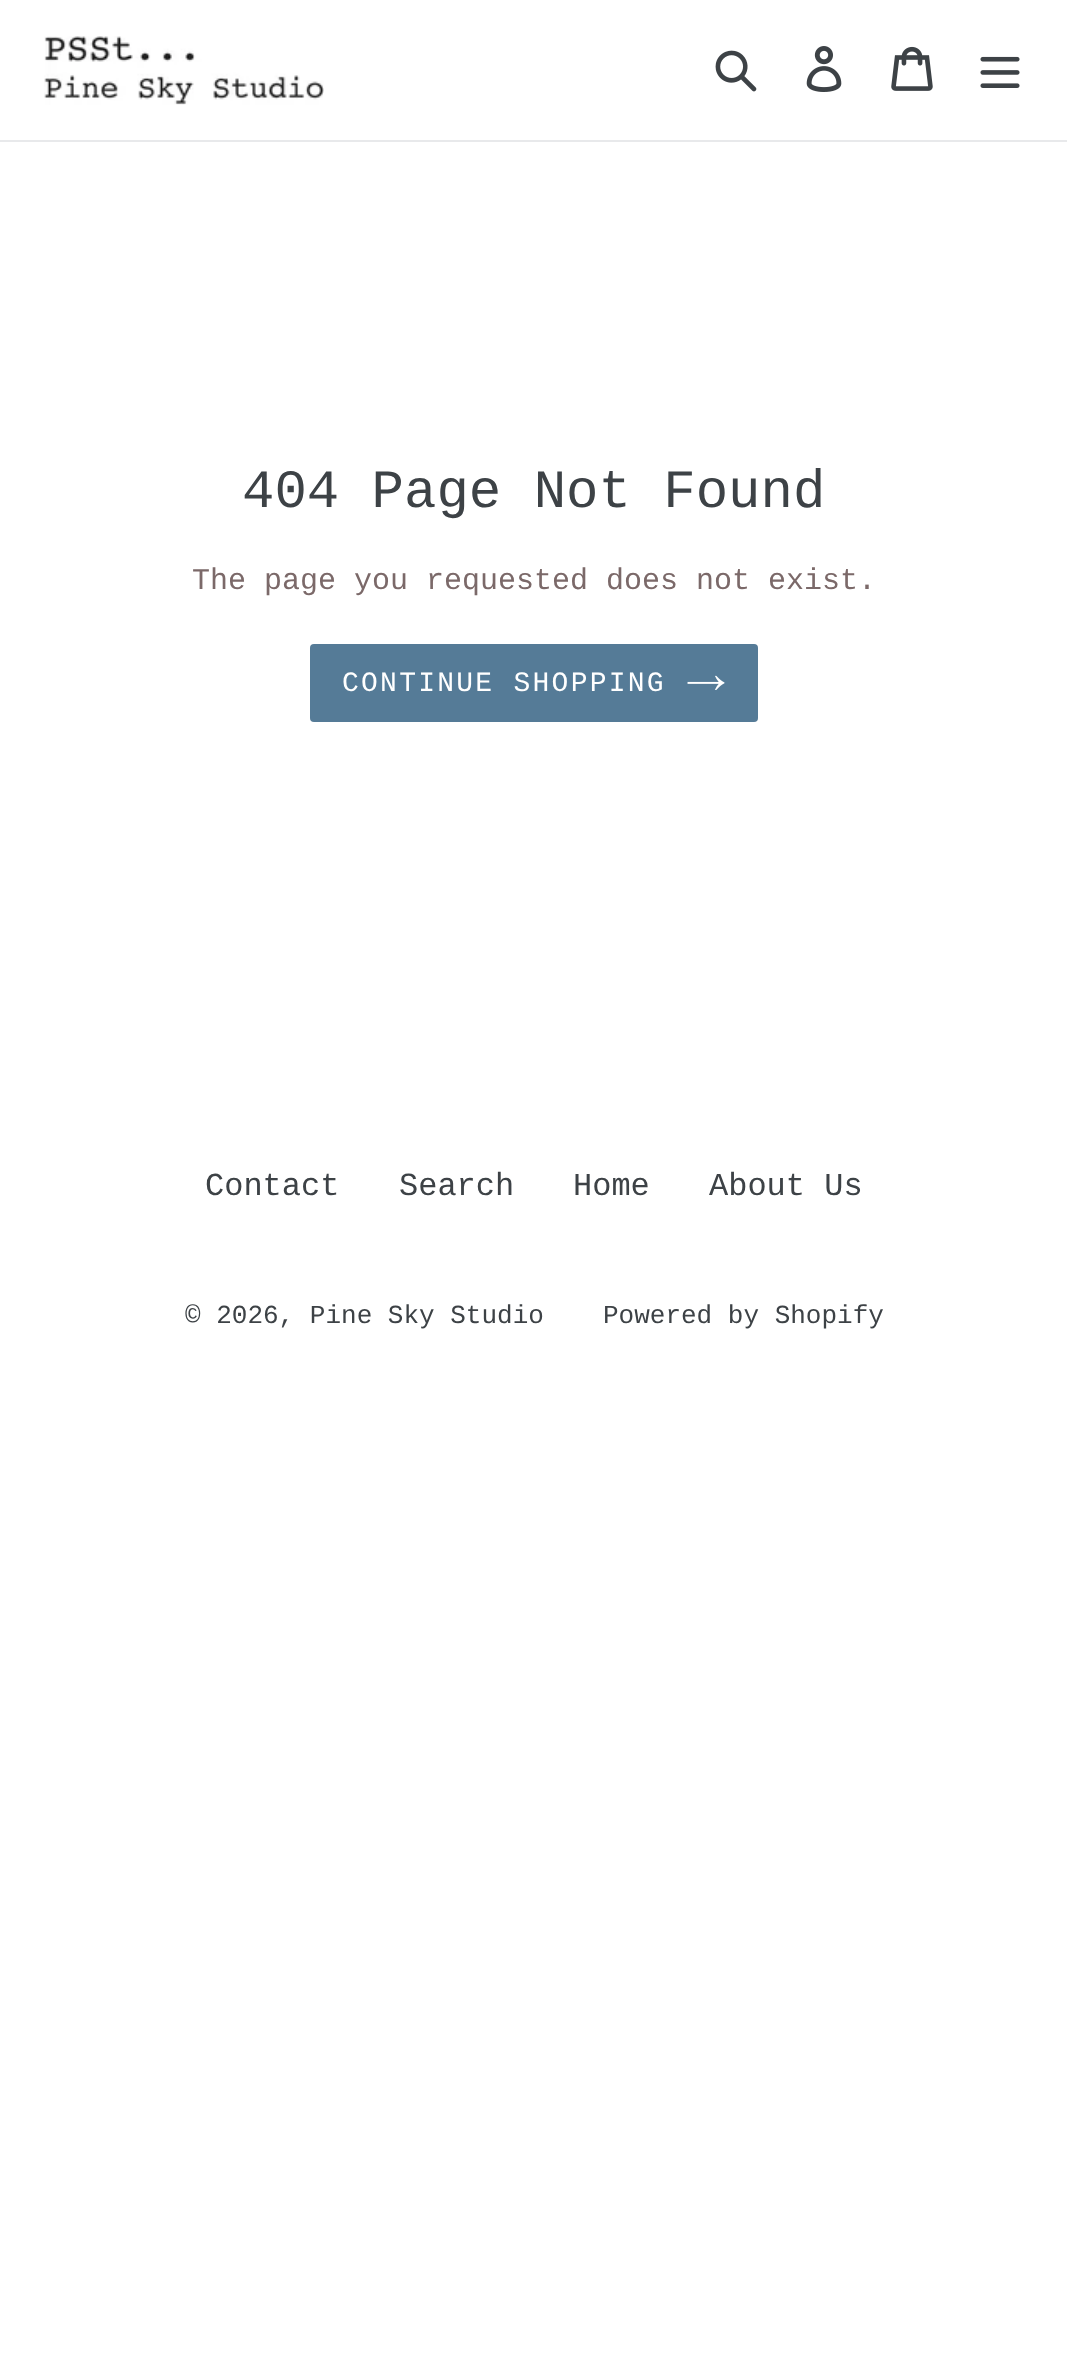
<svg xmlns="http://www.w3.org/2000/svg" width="1067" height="2361">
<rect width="100%" height="100%" fill="#fff"/>
<rect y="140" width="1067" height="2" fill="#e8e9eb"/>
<image x="44" y="36" width="280" height="69" href="media/1.png"/>
<image x="715" y="50" width="42" height="42" href="media/2.png"/>
<image x="806" y="46" width="36" height="46" href="media/3.png"/>
<image x="891" y="46" width="42" height="45" href="media/4.png"/>
<image x="980" y="56" width="40" height="32" href="media/5.png"/>
<text x="242" y="507" style="font-family:Liberation Mono;font-size:54px;fill:#3d4246">404 Page Not Found</text>
<text x="192" y="589" style="font-family:Liberation Mono;font-size:30px;fill:#7b6969">The page you requested does not exist.</text>
<rect x="310" y="644" width="448" height="78" rx="4" fill="#557b97"/>
<text x="342" y="691" style="font-family:Liberation Mono;font-size:28px;letter-spacing:2.25px;fill:#fff">CONTINUE SHOPPING</text>
<image x="687" y="675" width="38" height="15" href="media/6.png"/>
<text x="205" y="1195" style="font-family:Liberation Mono;font-size:32px;fill:#3d4246">Contact</text>
<text x="399" y="1195" style="font-family:Liberation Mono;font-size:32px;fill:#3d4246">Search</text>
<text x="573" y="1195" style="font-family:Liberation Mono;font-size:32px;fill:#3d4246">Home</text>
<text x="709" y="1195" style="font-family:Liberation Mono;font-size:32px;fill:#3d4246">About Us</text>
<text x="185" y="1323" style="font-family:Liberation Mono;font-size:26px;fill:#3d4246">© 2026, Pine Sky Studio</text>
<text x="603" y="1323" style="font-family:Liberation Mono;font-size:26px;fill:#3d4246">Powered by Shopify</text>
</svg>
